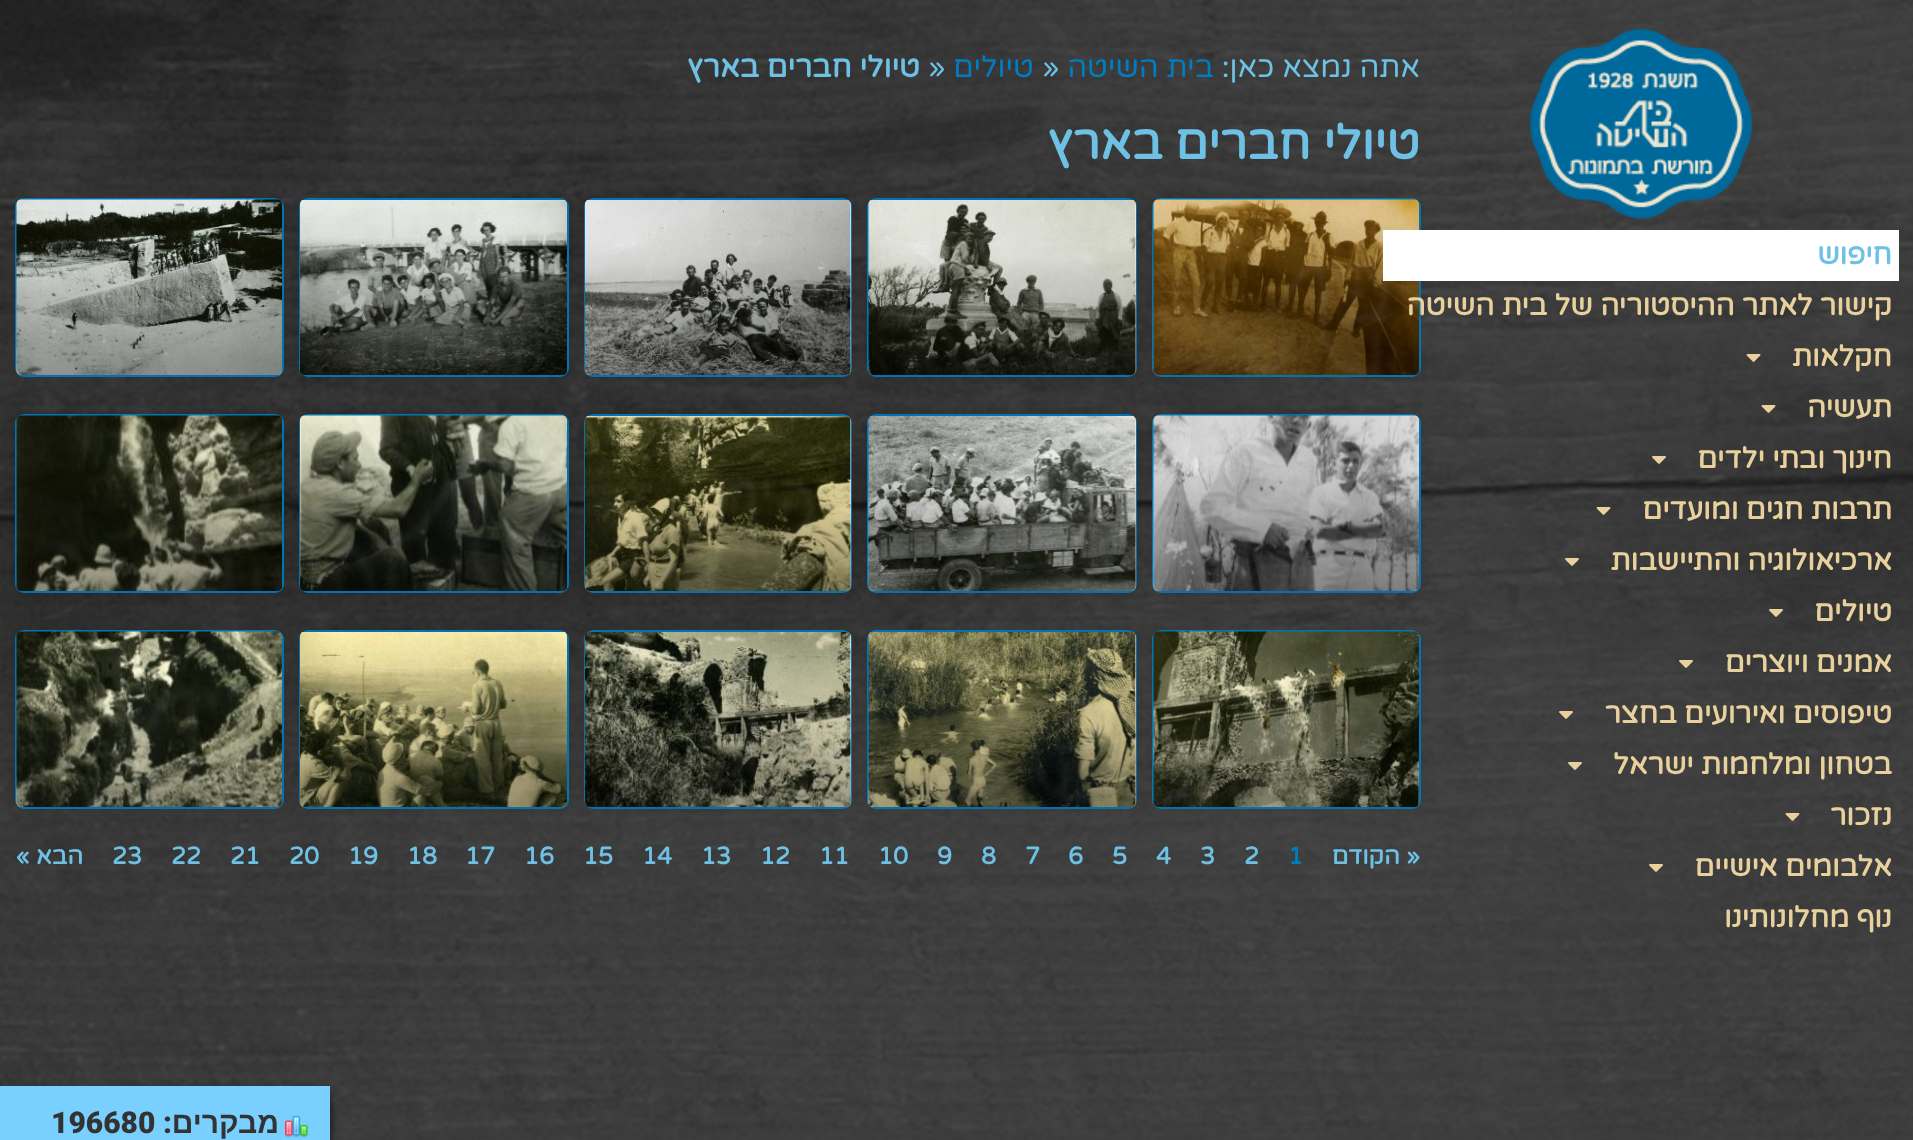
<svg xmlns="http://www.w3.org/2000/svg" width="1913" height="1140">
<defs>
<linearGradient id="g1" gradientUnits="userSpaceOnUse" x1="1286" y1="375" x2="1286" y2="200"><stop offset="0" stop-color="#000" stop-opacity="0.35"/><stop offset="0.75" stop-color="#000" stop-opacity="0"/></linearGradient>
<linearGradient id="g2" gradientUnits="userSpaceOnUse" x1="1002" y1="375" x2="1002" y2="200"><stop offset="0" stop-color="#000" stop-opacity="0.35"/><stop offset="0.75" stop-color="#000" stop-opacity="0"/></linearGradient>
<linearGradient id="g3" gradientUnits="userSpaceOnUse" x1="718" y1="375" x2="718" y2="200"><stop offset="0" stop-color="#000" stop-opacity="0.35"/><stop offset="0.75" stop-color="#000" stop-opacity="0"/></linearGradient>
<linearGradient id="g4" gradientUnits="userSpaceOnUse" x1="434" y1="375" x2="434" y2="200"><stop offset="0" stop-color="#000" stop-opacity="0.35"/><stop offset="0.75" stop-color="#000" stop-opacity="0"/></linearGradient>
<linearGradient id="g5" gradientUnits="userSpaceOnUse" x1="149" y1="375" x2="149" y2="200"><stop offset="0" stop-color="#000" stop-opacity="0.35"/><stop offset="0.75" stop-color="#000" stop-opacity="0"/></linearGradient>
<linearGradient id="g6" gradientUnits="userSpaceOnUse" x1="1286" y1="591" x2="1286" y2="416"><stop offset="0" stop-color="#000" stop-opacity="0.35"/><stop offset="0.75" stop-color="#000" stop-opacity="0"/></linearGradient>
<linearGradient id="g7" gradientUnits="userSpaceOnUse" x1="1002" y1="591" x2="1002" y2="416"><stop offset="0" stop-color="#000" stop-opacity="0.35"/><stop offset="0.75" stop-color="#000" stop-opacity="0"/></linearGradient>
<linearGradient id="g8" gradientUnits="userSpaceOnUse" x1="718" y1="591" x2="718" y2="416"><stop offset="0" stop-color="#000" stop-opacity="0.35"/><stop offset="0.75" stop-color="#000" stop-opacity="0"/></linearGradient>
<linearGradient id="g9" gradientUnits="userSpaceOnUse" x1="434" y1="591" x2="434" y2="416"><stop offset="0" stop-color="#000" stop-opacity="0.35"/><stop offset="0.75" stop-color="#000" stop-opacity="0"/></linearGradient>
<linearGradient id="g10" gradientUnits="userSpaceOnUse" x1="149" y1="591" x2="149" y2="416"><stop offset="0" stop-color="#000" stop-opacity="0.35"/><stop offset="0.75" stop-color="#000" stop-opacity="0"/></linearGradient>
<linearGradient id="g11" gradientUnits="userSpaceOnUse" x1="1286" y1="807" x2="1286" y2="632"><stop offset="0" stop-color="#000" stop-opacity="0.35"/><stop offset="0.75" stop-color="#000" stop-opacity="0"/></linearGradient>
<linearGradient id="g12" gradientUnits="userSpaceOnUse" x1="1002" y1="807" x2="1002" y2="632"><stop offset="0" stop-color="#000" stop-opacity="0.35"/><stop offset="0.75" stop-color="#000" stop-opacity="0"/></linearGradient>
<linearGradient id="g13" gradientUnits="userSpaceOnUse" x1="718" y1="807" x2="718" y2="632"><stop offset="0" stop-color="#000" stop-opacity="0.35"/><stop offset="0.75" stop-color="#000" stop-opacity="0"/></linearGradient>
<linearGradient id="g14" gradientUnits="userSpaceOnUse" x1="434" y1="807" x2="434" y2="632"><stop offset="0" stop-color="#000" stop-opacity="0.35"/><stop offset="0.75" stop-color="#000" stop-opacity="0"/></linearGradient>
<linearGradient id="g15" gradientUnits="userSpaceOnUse" x1="149" y1="807" x2="149" y2="632"><stop offset="0" stop-color="#000" stop-opacity="0.35"/><stop offset="0.75" stop-color="#000" stop-opacity="0"/></linearGradient>
</defs>
<rect width="100%" height="100%" fill="#fff"/>
<image x="0" y="0" width="1913" height="1140" href="media/1.png"/>
<text x="1420" y="77" style="font-family:Varela Round;font-size:30px;direction:rtl;fill:#6ec1e4">אתה נמצא כאן:</text>
<text x="1214" y="77" style="font-family:Varela Round;font-size:30px;direction:rtl;fill:#007dc1">בית השיטה</text>
<text x="1042" y="77" style="font-family:Varela Round;font-size:30px;fill:#6ec1e4">»</text>
<text x="1034" y="77" style="font-family:Varela Round;font-size:30px;direction:rtl;fill:#007dc1">טיולים</text>
<text x="928" y="77" style="font-family:Varela Round;font-size:30px;fill:#6ec1e4">»</text>
<text x="920" y="77" style="font-family:Varela Round;font-size:30px;font-weight:bold;direction:rtl;fill:#6ec1e4">טיולי חברים בארץ</text>
<image x="1529" y="28" width="224" height="191" href="media/2.png"/>
<rect x="1152" y="198" width="269" height="179" rx="9" fill="#007dc1"/>
<rect x="867" y="198" width="270" height="179" rx="9" fill="#007dc1"/>
<rect x="1154" y="200" width="265" height="175" rx="5" fill="#00000026" filter="blur(7.5px)"/>
<image x="1153" y="199" width="266" height="176" href="media/14.png"/>
<rect x="584" y="198" width="268" height="179" rx="9" fill="#007dc1"/>
<rect x="869" y="200" width="267" height="175" rx="5" fill="#00000026" filter="blur(7.5px)"/>
<rect x="1154" y="200" width="265" height="175" rx="5" fill="url(#g1)"/>
<rect x="1383" y="230" width="516" height="51" fill="#fff"/>
<text x="1892" y="264" style="font-family:Varela Round;font-size:28.75px;font-weight:bold;direction:rtl;fill:#6ec1e4">חיפוש</text>
<text x="1892" y="315" style="font-family:Varela Round;font-size:28.75px;font-weight:bold;direction:rtl;fill:#e8d19d">קישור לאתר ההיסטוריה של בית השיטה</text>
<text x="1892" y="366" style="font-family:Varela Round;font-size:28.75px;font-weight:bold;direction:rtl;fill:#e8d19d">חקלאות</text>
<image x="1746" y="354" width="15" height="8" href="media/3.png"/>
<text x="1892" y="417" style="font-family:Varela Round;font-size:28.75px;font-weight:bold;direction:rtl;fill:#e8d19d">תעשיה</text>
<image x="1761" y="405" width="15" height="8" href="media/4.png"/>
<text x="1892" y="468" style="font-family:Varela Round;font-size:28.75px;font-weight:bold;direction:rtl;fill:#e8d19d">חינוך ובתי ילדים</text>
<image x="1652" y="456" width="14" height="8" href="media/5.png"/>
<text x="1892" y="519" style="font-family:Varela Round;font-size:28.75px;font-weight:bold;direction:rtl;fill:#e8d19d">תרבות חגים ומועדים</text>
<image x="1596" y="507" width="15" height="8" href="media/6.png"/>
<text x="1892" y="570" style="font-family:Varela Round;font-size:28.75px;font-weight:bold;direction:rtl;fill:#e8d19d">ארכיאולוגיה והתיישבות</text>
<image x="1565" y="558" width="14" height="8" href="media/7.png"/>
<text x="1892" y="621" style="font-family:Varela Round;font-size:28.75px;font-weight:bold;direction:rtl;fill:#e8d19d">טיולים</text>
<image x="1769" y="609" width="14" height="8" href="media/8.png"/>
<text x="1892" y="672" style="font-family:Varela Round;font-size:28.75px;font-weight:bold;direction:rtl;fill:#e8d19d">אמנים ויוצרים</text>
<image x="1679" y="660" width="14" height="8" href="media/9.png"/>
<text x="1892" y="723" style="font-family:Varela Round;font-size:28.75px;font-weight:bold;direction:rtl;fill:#e8d19d">טיפוסים ואירועים בחצר</text>
<image x="1559" y="711" width="14" height="8" href="media/10.png"/>
<text x="1892" y="774" style="font-family:Varela Round;font-size:28.75px;font-weight:bold;direction:rtl;fill:#e8d19d">בטחון ומלחמות ישראל</text>
<image x="1568" y="762" width="14" height="8" href="media/11.png"/>
<text x="1892" y="825" style="font-family:Varela Round;font-size:28.75px;font-weight:bold;direction:rtl;fill:#e8d19d">נזכור</text>
<image x="1785" y="813" width="15" height="8" href="media/12.png"/>
<text x="1892" y="876" style="font-family:Varela Round;font-size:28.75px;font-weight:bold;direction:rtl;fill:#e8d19d">אלבומים אישיים</text>
<image x="1649" y="864" width="14" height="8" href="media/13.png"/>
<text x="1892" y="927" style="font-family:Varela Round;font-size:28.75px;font-weight:bold;direction:rtl;fill:#e8d19d">נוף מחלונותינו</text>
<text x="1420" y="159" style="font-family:Varela Round;font-size:48px;font-weight:bold;direction:rtl;fill:#6ec1e4">טיולי חברים בארץ</text>
<rect x="869" y="200" width="267" height="175" rx="5" fill="#fff"/>
<image x="868" y="200" width="268" height="175" href="media/15.png"/>
<rect x="299" y="198" width="270" height="179" rx="9" fill="#007dc1"/>
<rect x="585" y="200" width="266" height="175" rx="5" fill="#00000026" filter="blur(7.5px)"/>
<rect x="869" y="200" width="267" height="175" rx="5" fill="url(#g2)"/>
<rect x="585" y="200" width="266" height="175" rx="5" fill="#fff"/>
<image x="585" y="200" width="266" height="175" href="media/16.png"/>
<rect x="15" y="198" width="269" height="179" rx="9" fill="#007dc1"/>
<rect x="300" y="200" width="267" height="175" rx="5" fill="#00000026" filter="blur(7.5px)"/>
<rect x="585" y="200" width="266" height="175" rx="5" fill="url(#g3)"/>
<image x="300" y="200" width="267" height="175" href="media/17.png"/>
<rect x="17" y="200" width="265" height="175" rx="5" fill="#00000026" filter="blur(7.5px)"/>
<rect x="300" y="200" width="267" height="175" rx="5" fill="url(#g4)"/>
<image x="16" y="199" width="266" height="176" href="media/18.png"/>
<rect x="17" y="200" width="265" height="175" rx="5" fill="url(#g5)"/>
<rect x="1152" y="414" width="269" height="179" rx="9" fill="#007dc1"/>
<rect x="867" y="414" width="270" height="179" rx="9" fill="#007dc1"/>
<rect x="1154" y="416" width="265" height="175" rx="5" fill="#00000026" filter="blur(7.5px)"/>
<image x="1153" y="415" width="266" height="176" href="media/19.png"/>
<rect x="584" y="414" width="268" height="179" rx="9" fill="#007dc1"/>
<rect x="869" y="416" width="267" height="175" rx="5" fill="#00000026" filter="blur(7.5px)"/>
<rect x="1154" y="416" width="265" height="175" rx="5" fill="url(#g6)"/>
<rect x="869" y="416" width="267" height="175" rx="5" fill="#fff"/>
<image x="868" y="416" width="268" height="175" href="media/20.png"/>
<rect x="299" y="414" width="270" height="179" rx="9" fill="#007dc1"/>
<rect x="585" y="416" width="266" height="175" rx="5" fill="#00000026" filter="blur(7.5px)"/>
<rect x="869" y="416" width="267" height="175" rx="5" fill="url(#g7)"/>
<rect x="585" y="416" width="266" height="175" rx="5" fill="#fff"/>
<image x="585" y="416" width="266" height="175" href="media/21.png"/>
<rect x="15" y="414" width="269" height="179" rx="9" fill="#007dc1"/>
<rect x="300" y="416" width="267" height="175" rx="5" fill="#00000026" filter="blur(7.5px)"/>
<rect x="585" y="416" width="266" height="175" rx="5" fill="url(#g8)"/>
<image x="300" y="415" width="267" height="176" href="media/22.png"/>
<rect x="17" y="416" width="265" height="175" rx="5" fill="#00000026" filter="blur(7.5px)"/>
<rect x="300" y="416" width="267" height="175" rx="5" fill="url(#g9)"/>
<image x="16" y="415" width="266" height="176" href="media/23.png"/>
<rect x="17" y="416" width="265" height="175" rx="5" fill="url(#g10)"/>
<rect x="1152" y="630" width="269" height="179" rx="9" fill="#007dc1"/>
<rect x="867" y="630" width="270" height="179" rx="9" fill="#007dc1"/>
<rect x="1154" y="632" width="265" height="175" rx="5" fill="#00000026" filter="blur(7.5px)"/>
<image x="1153" y="631" width="266" height="176" href="media/24.png"/>
<rect x="584" y="630" width="268" height="179" rx="9" fill="#007dc1"/>
<rect x="869" y="632" width="267" height="175" rx="5" fill="#00000026" filter="blur(7.5px)"/>
<rect x="1154" y="632" width="265" height="175" rx="5" fill="url(#g11)"/>
<rect x="869" y="632" width="267" height="175" rx="5" fill="#fff"/>
<image x="868" y="632" width="268" height="175" href="media/25.png"/>
<rect x="299" y="630" width="270" height="179" rx="9" fill="#007dc1"/>
<rect x="585" y="632" width="266" height="175" rx="5" fill="#00000026" filter="blur(7.5px)"/>
<rect x="869" y="632" width="267" height="175" rx="5" fill="url(#g12)"/>
<rect x="585" y="632" width="266" height="175" rx="5" fill="#fff"/>
<image x="585" y="632" width="266" height="175" href="media/26.png"/>
<rect x="15" y="630" width="269" height="179" rx="9" fill="#007dc1"/>
<rect x="300" y="632" width="267" height="175" rx="5" fill="#00000026" filter="blur(7.5px)"/>
<rect x="585" y="632" width="266" height="175" rx="5" fill="url(#g13)"/>
<image x="300" y="632" width="267" height="175" href="media/27.png"/>
<rect x="17" y="632" width="265" height="175" rx="5" fill="#00000026" filter="blur(7.5px)"/>
<rect x="300" y="632" width="267" height="175" rx="5" fill="url(#g14)"/>
<image x="16" y="631" width="266" height="176" href="media/28.png"/>
<rect x="17" y="632" width="265" height="175" rx="5" fill="url(#g15)"/>
<text x="1420" y="864" style="font-family:Varela Round;font-size:24px;font-weight:bold;direction:rtl;fill:#6ec1e4">« הקודם</text>
<text x="1288" y="864" style="font-family:Varela Round;font-size:24px;font-weight:bold;fill:#007dc1">1</text>
<text x="1244" y="864" style="font-family:Varela Round;font-size:24px;font-weight:bold;fill:#6ec1e4">2</text>
<text x="1200" y="864" style="font-family:Varela Round;font-size:24px;font-weight:bold;fill:#6ec1e4">3</text>
<text x="1156" y="864" style="font-family:Varela Round;font-size:24px;font-weight:bold;fill:#6ec1e4">4</text>
<text x="1112" y="864" style="font-family:Varela Round;font-size:24px;font-weight:bold;fill:#6ec1e4">5</text>
<text x="1068" y="864" style="font-family:Varela Round;font-size:24px;font-weight:bold;fill:#6ec1e4">6</text>
<text x="1025" y="864" style="font-family:Varela Round;font-size:24px;font-weight:bold;fill:#6ec1e4">7</text>
<text x="981" y="864" style="font-family:Varela Round;font-size:24px;font-weight:bold;fill:#6ec1e4">8</text>
<text x="937" y="864" style="font-family:Varela Round;font-size:24px;font-weight:bold;fill:#6ec1e4">9</text>
<text x="878" y="864" style="font-family:Varela Round;font-size:24px;font-weight:bold;fill:#6ec1e4">10</text>
<text x="819" y="864" style="font-family:Varela Round;font-size:24px;font-weight:bold;fill:#6ec1e4">11</text>
<text x="760" y="864" style="font-family:Varela Round;font-size:24px;font-weight:bold;fill:#6ec1e4">12</text>
<text x="701" y="864" style="font-family:Varela Round;font-size:24px;font-weight:bold;fill:#6ec1e4">13</text>
<text x="642" y="864" style="font-family:Varela Round;font-size:24px;font-weight:bold;fill:#6ec1e4">14</text>
<text x="583" y="864" style="font-family:Varela Round;font-size:24px;font-weight:bold;fill:#6ec1e4">15</text>
<text x="524" y="864" style="font-family:Varela Round;font-size:24px;font-weight:bold;fill:#6ec1e4">16</text>
<text x="465" y="864" style="font-family:Varela Round;font-size:24px;font-weight:bold;fill:#6ec1e4">17</text>
<text x="407" y="864" style="font-family:Varela Round;font-size:24px;font-weight:bold;fill:#6ec1e4">18</text>
<text x="348" y="864" style="font-family:Varela Round;font-size:24px;font-weight:bold;fill:#6ec1e4">19</text>
<text x="289" y="864" style="font-family:Varela Round;font-size:24px;font-weight:bold;fill:#6ec1e4">20</text>
<text x="230" y="864" style="font-family:Varela Round;font-size:24px;font-weight:bold;fill:#6ec1e4">21</text>
<text x="171" y="864" style="font-family:Varela Round;font-size:24px;font-weight:bold;fill:#6ec1e4">22</text>
<text x="112" y="864" style="font-family:Varela Round;font-size:24px;font-weight:bold;fill:#6ec1e4">23</text>
<text x="83" y="864" style="font-family:Varela Round;font-size:24px;font-weight:bold;direction:rtl;fill:#6ec1e4">הבא »</text>
<rect y="1094" width="330" height="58" fill="#000000b3" filter="blur(4px)"/>
<rect y="1086" width="330" height="54" fill="#79d0ff"/>
<image x="285" y="1115" width="23" height="23" href="media/29.png"/>
<text x="279" y="1133" style="font-family:Liberation Sans;font-size:30px;font-weight:bold;direction:rtl;fill:#333">מבקרים</text>
<text x="172" y="1133" style="font-family:Roboto;font-size:30px;font-weight:900;direction:rtl;fill:#333">:</text>
<text x="51" y="1133" style="font-family:Roboto;font-size:30px;font-weight:900;fill:#333">196680</text>
</svg>
